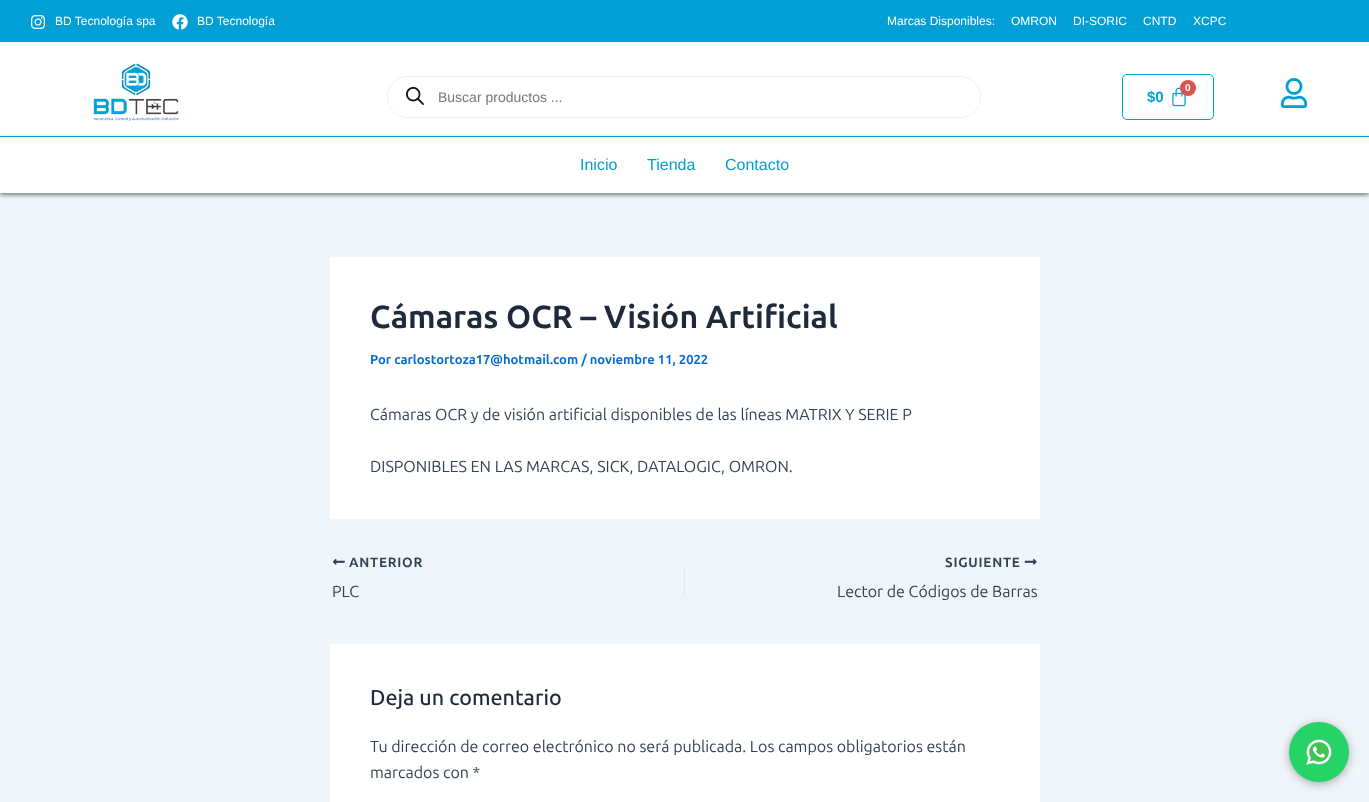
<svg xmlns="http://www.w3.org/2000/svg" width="1369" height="802">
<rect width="100%" height="100%" fill="#f0f5fa"/>
<rect width="1369" height="42" fill="#00a0d6"/>
<image x="31" y="15" width="14" height="14" href="media/1.png"/>
<text x="55" y="25" style="font-family:Liberation Sans;font-size:12px;fill:#fff">BD Tecnología spa</text>
<image x="172" y="14" width="16" height="16" href="media/2.png"/>
<text x="197" y="25" style="font-family:Liberation Sans;font-size:12px;fill:#fff">BD Tecnología</text>
<text x="887" y="25" style="font-family:Liberation Sans;font-size:12px;fill:#fff">Marcas Disponibles:</text>
<text x="1011" y="25" style="font-family:Liberation Sans;font-size:12px;fill:#fff">OMRON</text>
<text x="1073" y="25" style="font-family:Liberation Sans;font-size:12px;fill:#fff">DI-SORIC</text>
<text x="1143" y="25" style="font-family:Liberation Sans;font-size:12px;fill:#fff">CNTD</text>
<text x="1193" y="25" style="font-family:Liberation Sans;font-size:12px;fill:#fff">XCPC</text>
<rect y="42" width="1369" height="94" fill="#fff"/>
<image x="93" y="63" width="86" height="58" href="media/3.png"/>
<rect x="387.5" y="76.5" width="593" height="41" rx="20.5" fill="none" stroke="#eee"/>
<rect x="388" y="77" width="592" height="40" rx="20" fill="#fff"/>
<image x="406" y="87" width="18" height="18" href="media/4.png"/>
<text x="438" y="102" style="font-family:Liberation Sans;font-size:14px;fill:#777">Buscar productos ...</text>
<rect x="1122.5" y="74.5" width="91" height="45" rx="4.5" fill="none" stroke="#00a0d6"/>
<image x="1172" y="87" width="14" height="20" href="media/5.png"/>
<circle cx="1188" cy="88" r="8" fill="#d9534f"/>
<text x="1185" y="91" style="font-family:Liberation Sans;font-size:10px;font-weight:bold;fill:#fff">0</text>
<text x="1147" y="102" style="font-family:Liberation Sans;font-size:15px;font-weight:bold;fill:#00a0d6">$0</text>
<image x="1280" y="78" width="28" height="30" href="media/6.png"/>
<rect y="138" width="1369" height="57" fill="#00000080" filter="blur(2px)"/>
<rect y="137" width="1369" height="56" fill="#fff"/>
<rect y="136" width="1369" height="1" fill="#00a0d6"/>
<text x="580" y="170" style="font-family:Liberation Sans;font-size:16px;fill:#00a0d6">Inicio</text>
<text x="647" y="170" style="font-family:Liberation Sans;font-size:16px;fill:#00a0d6">Tienda</text>
<text x="725" y="170" style="font-family:Liberation Sans;font-size:16px;fill:#00a0d6">Contacto</text>
<rect x="330" y="257" width="710" height="262" fill="#fff"/>
<text x="370" y="328" style="font-family:Ubuntu;font-size:32px;font-weight:bold;fill:#1e293b">Cámaras OCR – Visión Artificial</text>
<text x="370" y="364" style="font-family:Ubuntu;font-size:13px;font-weight:bold;fill:#046bd2">Por carlostortoza17@hotmail.com / noviembre 11, 2022</text>
<text x="370" y="420" style="font-family:Ubuntu;font-size:16px;fill:#334155">Cámaras OCR y de visión artificial disponibles de las líneas MATRIX Y SERIE P</text>
<text x="370" y="472" style="font-family:Ubuntu;font-size:16px;fill:#334155">DISPONIBLES EN LAS MARCAS, SICK, DATALOGIC, OMRON.</text>
<image x="332" y="558" width="13" height="7" href="media/7.png"/>
<text x="349" y="567" style="font-family:Ubuntu;font-size:13.5px;font-weight:bold;letter-spacing:0.75px;fill:#334155">ANTERIOR</text>
<text x="332" y="597" style="font-family:Ubuntu;font-size:16px;fill:#334155">PLC</text>
<rect x="684" y="566" width="1" height="31" fill="#e1e8ed"/>
<text x="945" y="567" style="font-family:Ubuntu;font-size:13.5px;font-weight:bold;letter-spacing:0.75px;fill:#334155">SIGUIENTE</text>
<image x="1024" y="558" width="13" height="7" href="media/8.png"/>
<text x="837" y="597" style="font-family:Ubuntu;font-size:16px;fill:#334155">Lector de Códigos de Barras</text>
<rect x="330" y="644" width="710" height="158" fill="#fff"/>
<text x="370" y="705" style="font-family:Ubuntu;font-size:21.5px;font-weight:500;fill:#1e293b">Deja un comentario</text>
<text x="370" y="752" style="font-family:Ubuntu;font-size:16px;fill:#334155">Tu dirección de correo electrónico no será publicada. Los campos obligatorios están</text>
<text x="370" y="778" style="font-family:Ubuntu;font-size:16px;fill:#334155">marcados con *</text>
<rect x="1289" y="724" width="60" height="60" rx="30" fill="#0000004d" filter="blur(5px)"/>
<circle cx="1319" cy="752" r="30" fill="#25d366"/>
<image x="1306" y="739" width="26" height="26" href="media/9.png"/>
</svg>
